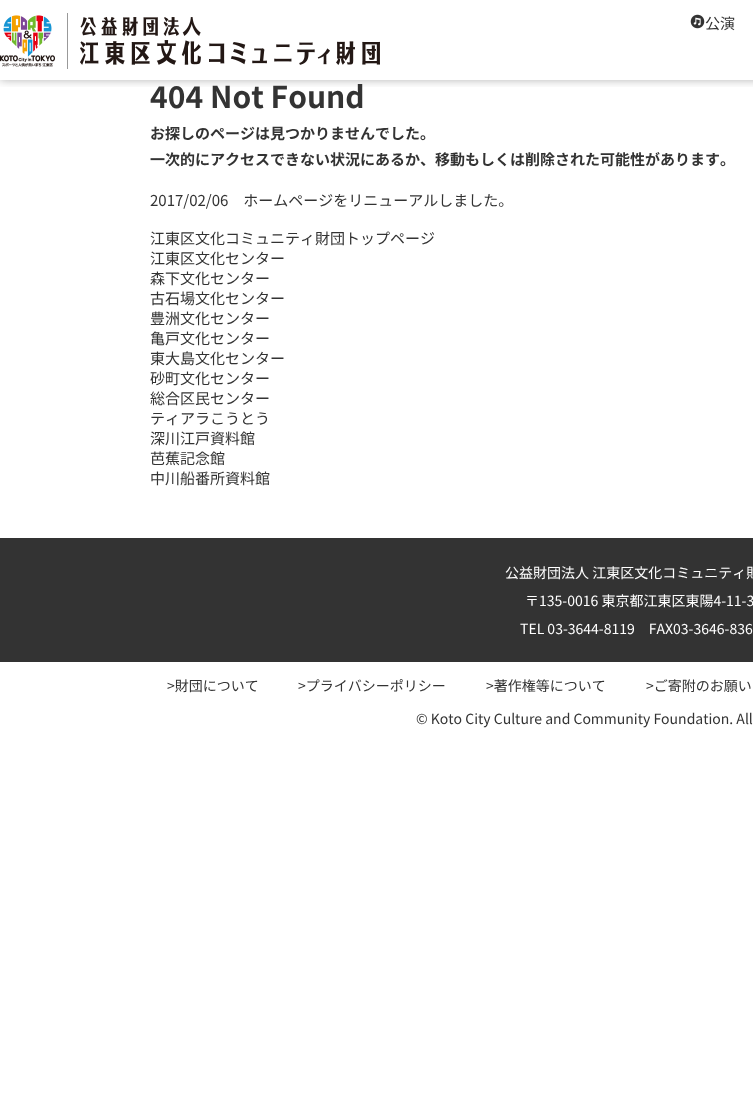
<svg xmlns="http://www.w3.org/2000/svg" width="753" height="1107">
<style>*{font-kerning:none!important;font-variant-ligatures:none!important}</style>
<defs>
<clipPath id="clip1"><rect x="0" y="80" width="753" height="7"/></clipPath>
</defs>
<rect width="100%" height="100%" fill="#fff"/>
<g clip-path="url(#clip1)">
<rect width="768" height="80" fill="#0000004d" filter="blur(5px)"/>
</g>
<image x="0" y="13" width="380" height="56" href="media/1.png"/>
<image x="690" y="14" width="15" height="15" href="media/2.png"/>
<text x="705" y="29" style="font-family:Noto Sans JP;font-size:15px;fill:#333">公演</text>
<text x="150" y="108" style="font-family:Noto Sans JP;font-size:30px;font-weight:bold;fill:#333">404 Not Found</text>
<text x="150" y="139" style="font-family:Noto Sans JP;font-size:15px;font-weight:bold;fill:#333">お探しのページは見つかりませんでした。</text>
<text x="150" y="165" style="font-family:Noto Sans JP;font-size:15px;font-weight:bold;fill:#333">一次的にアクセスできない状況にあるか、移動もしくは削除された可能性があります。</text>
<text x="150" y="206" style="font-family:Noto Sans JP;font-size:15px;fill:#333">2017/02/06　ホームページをリニューアルしました。</text>
<text x="150" y="244" style="font-family:Noto Sans JP;font-size:15px;fill:#333">江東区文化コミュニティ財団トップページ</text>
<text x="150" y="264" style="font-family:Noto Sans JP;font-size:15px;fill:#333">江東区文化センター</text>
<text x="150" y="284" style="font-family:Noto Sans JP;font-size:15px;fill:#333">森下文化センター</text>
<text x="150" y="304" style="font-family:Noto Sans JP;font-size:15px;fill:#333">古石場文化センター</text>
<text x="150" y="324" style="font-family:Noto Sans JP;font-size:15px;fill:#333">豊洲文化センター</text>
<text x="150" y="344" style="font-family:Noto Sans JP;font-size:15px;fill:#333">亀戸文化センター</text>
<text x="150" y="364" style="font-family:Noto Sans JP;font-size:15px;fill:#333">東大島文化センター</text>
<text x="150" y="384" style="font-family:Noto Sans JP;font-size:15px;fill:#333">砂町文化センター</text>
<text x="150" y="404" style="font-family:Noto Sans JP;font-size:15px;fill:#333">総合区民センター</text>
<text x="150" y="424" style="font-family:Noto Sans JP;font-size:15px;fill:#333">ティアラこうとう</text>
<text x="150" y="444" style="font-family:Noto Sans JP;font-size:15px;fill:#333">深川江戸資料館</text>
<text x="150" y="464" style="font-family:Noto Sans JP;font-size:15px;fill:#333">芭蕉記念館</text>
<text x="150" y="484" style="font-family:Noto Sans JP;font-size:15px;fill:#333">中川船番所資料館</text>
<rect y="538" width="753" height="124" fill="#333"/>
<text x="505" y="578" style="font-family:Noto Sans JP;font-size:14px;fill:#fff">公益財団法人 江東区文化コミュニティ財</text>
<text x="525" y="606" style="font-family:Noto Sans JP;font-size:14px;fill:#fff">〒135-0016 東京都江東区東陽4-11-3</text>
<text x="520" y="634" style="font-family:Noto Sans JP;font-size:14px;fill:#fff">TEL 03-3644-8119　FAX03-3646-836</text>
<text x="167" y="691" style="font-family:Noto Sans JP;font-size:14px;fill:#333">&gt;財団について</text>
<text x="298" y="691" style="font-family:Noto Sans JP;font-size:14px;fill:#333">&gt;プライバシーポリシー</text>
<text x="486" y="691" style="font-family:Noto Sans JP;font-size:14px;fill:#333">&gt;著作権等について</text>
<text x="646" y="691" style="font-family:Noto Sans JP;font-size:14px;fill:#333">&gt;ご寄附のお願い</text>
<text x="416" y="724" style="font-family:Noto Sans JP;font-size:14px;fill:#333">© Koto City Culture and Community Foundation. All</text>
</svg>
